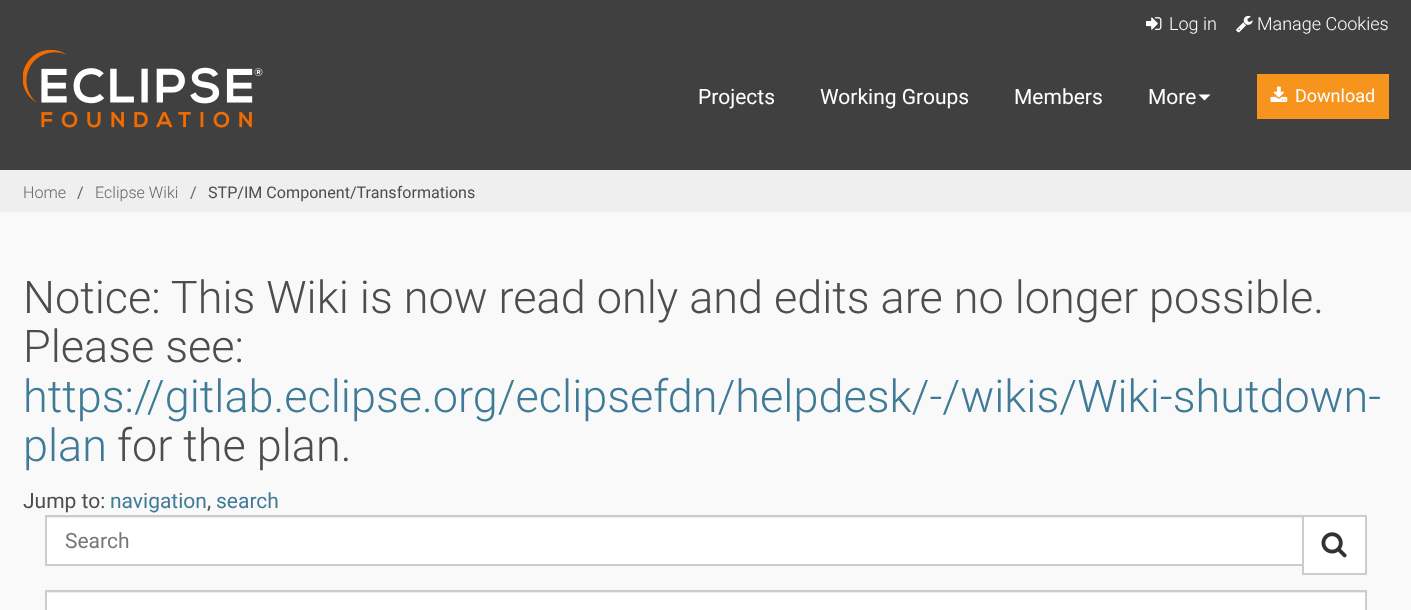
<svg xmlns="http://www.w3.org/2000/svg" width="1411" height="610">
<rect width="100%" height="100%" fill="#f9f9f9"/>
<rect width="1411" height="170" fill="#404040"/>
<image x="1146" y="17" width="16" height="13" href="media/1.png"/>
<text x="1169" y="30" style="font-family:Roboto;font-size:18px;font-weight:300;fill:#fff">Log in</text>
<image x="1236" y="15" width="17" height="18" href="media/2.png"/>
<text x="1257" y="30" style="font-family:Roboto;font-size:18px;font-weight:300;fill:#fff">Manage Cookies</text>
<image x="23" y="50" width="240" height="78" href="media/3.png"/>
<text x="698" y="104" style="font-family:Roboto;font-size:21px;fill:#fff">Projects</text>
<text x="820" y="104" style="font-family:Roboto;font-size:21px;fill:#fff">Working Groups</text>
<text x="1014" y="104" style="font-family:Roboto;font-size:21px;fill:#fff">Members</text>
<text x="1148" y="104" style="font-family:Roboto;font-size:21px;fill:#fff">More</text>
<path d="M1198.5 94.5h12l-6 6z" fill="#fff"/>
<rect x="1257" y="74" width="132" height="45" fill="#f7941e"/>
<image x="1270" y="86" width="18" height="16" href="media/4.png"/>
<text x="1295" y="102" style="font-family:Roboto;font-size:18px;fill:#fff">Download</text>
<rect y="170" width="1411" height="42" fill="#efefef"/>
<text x="23" y="198" style="font-family:Roboto;font-size:16.1px;font-weight:300;fill:#656668">Home</text>
<text x="77" y="198" style="font-family:Roboto;font-size:16.1px;fill:#656668">/</text>
<text x="95" y="198" style="font-family:Roboto;font-size:16.1px;font-weight:300;fill:#656668">Eclipse Wiki</text>
<text x="190" y="198" style="font-family:Roboto;font-size:16.1px;fill:#656668">/</text>
<text x="208" y="198" style="font-family:Roboto;font-size:16.1px;fill:#4c4d4e">STP/IM Component/Transformations</text>
<text x="23" y="313" style="font-family:Roboto;font-size:45px;font-weight:300;fill:#4c4d4e">Notice: This Wiki is now read only and edits are no longer possible.</text>
<text x="23" y="362" style="font-family:Roboto;font-size:45px;font-weight:300;fill:#4c4d4e">Please see:</text>
<text x="23" y="412" style="font-family:Roboto;font-size:45px;font-weight:300;fill:#3f7b96">https://gitlab.eclipse.org/eclipsefdn/helpdesk/-/wikis/Wiki-shutdown-</text>
<text x="23" y="461" style="font-family:Roboto;font-size:45px;font-weight:300;fill:#3f7b96">plan</text>
<text x="117" y="461" style="font-family:Roboto;font-size:45px;font-weight:300;fill:#4c4d4e">for the plan.</text>
<text x="23" y="508" style="font-family:Roboto;font-size:21px;fill:#4c4d4e">Jump to:</text>
<text x="110" y="508" style="font-family:Roboto;font-size:21px;fill:#3f7b96">navigation</text>
<text x="207" y="508" style="font-family:Roboto;font-size:21px;fill:#4c4d4e">,</text>
<text x="216" y="508" style="font-family:Roboto;font-size:21px;fill:#3f7b96">search</text>
<rect x="47" y="518" width="1255" height="46" fill="#fff"/>
<rect x="47" y="517" width="1255" height="1" fill="#ececec"/>
<rect x="46" y="516" width="1257" height="49" fill="none" stroke="#ccc" stroke-width="2"/>
<text x="65" y="548" style="font-family:Roboto;font-size:21px;fill:#777">Search</text>
<rect x="1303" y="516" width="63" height="58" fill="#fff" stroke="#ccc" stroke-width="2"/>
<image x="1321" y="532" width="26" height="26" href="media/5.png"/>
<rect x="47" y="593" width="1318" height="17" fill="#fff"/>
<rect x="47" y="592" width="1318" height="1" fill="#ececec"/>
<rect x="46" y="591" width="1320" height="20" fill="none" stroke="#ccc" stroke-width="2"/>
</svg>
